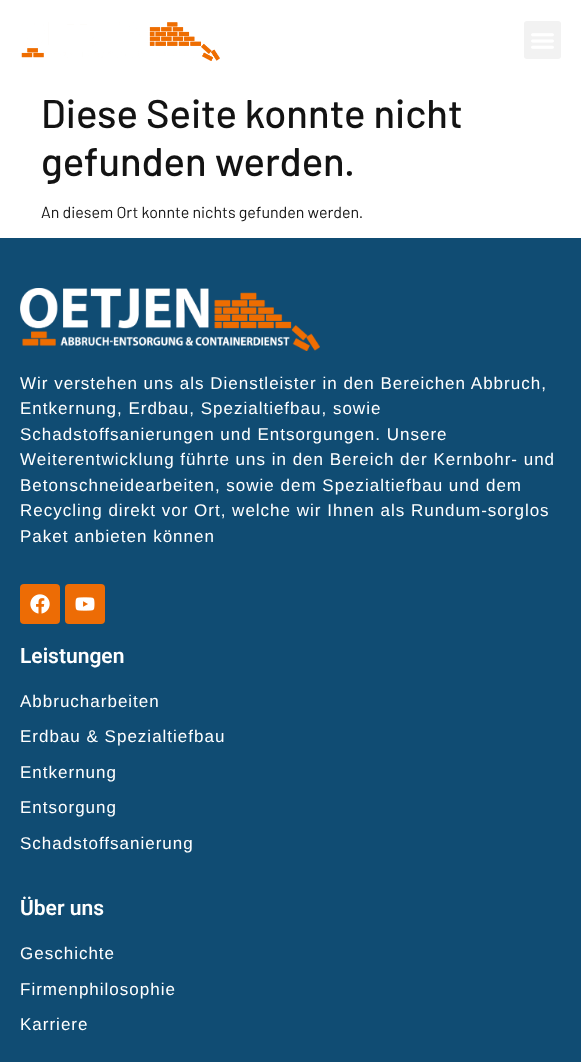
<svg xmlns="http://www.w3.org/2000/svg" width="581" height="1062">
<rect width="100%" height="100%" fill="#fff"/>
<image x="21" y="22" width="199" height="39" href="media/1.png"/>
<rect x="524" y="21" width="37" height="38" rx="3" fill="#f2f2f2"/>
<image x="531" y="33" width="23" height="16" href="media/2.png"/>
<text x="41" y="128" style="font-family:Barlow;font-size:40px;font-weight:500;fill:#131313">Diese Seite konnte nicht</text>
<text x="41" y="176" style="font-family:Barlow;font-size:40px;font-weight:500;fill:#131313">gefunden werden.</text>
<text x="41" y="218" style="font-family:Barlow;font-size:16px;fill:#131313">An diesem Ort konnte nichts gefunden werden.</text>
<rect y="238" width="581" height="824" fill="#104c73"/>
<image x="20" y="288" width="300" height="63" href="media/3.png"/>
<text x="20" y="389" style="font-family:Liberation Sans;font-size:17px;letter-spacing:1px;fill:#fff">Wir verstehen uns als Dienstleister in den Bereichen Abbruch,</text>
<text x="20" y="414" style="font-family:Liberation Sans;font-size:17px;letter-spacing:1px;fill:#fff">Entkernung, Erdbau, Spezialtiefbau, sowie</text>
<text x="20" y="440" style="font-family:Liberation Sans;font-size:17px;letter-spacing:1px;fill:#fff">Schadstoffsanierungen und Entsorgungen. Unsere</text>
<text x="20" y="465" style="font-family:Liberation Sans;font-size:17px;letter-spacing:1px;fill:#fff">Weiterentwicklung führte uns in den Bereich der Kernbohr- und</text>
<text x="20" y="491" style="font-family:Liberation Sans;font-size:17px;letter-spacing:1px;fill:#fff">Betonschneidearbeiten, sowie dem Spezialtiefbau und dem</text>
<text x="20" y="516" style="font-family:Liberation Sans;font-size:17px;letter-spacing:1px;fill:#fff">Recycling direkt vor Ort, welche wir Ihnen als Rundum-sorglos</text>
<text x="20" y="542" style="font-family:Liberation Sans;font-size:17px;letter-spacing:1px;fill:#fff">Paket anbieten können</text>
<rect x="20" y="584" width="40" height="40" rx="4" fill="#ed6c05"/>
<image x="30" y="594" width="20" height="20" href="media/4.png"/>
<rect x="65" y="584" width="40" height="40" rx="4" fill="#ed6c05"/>
<image x="75" y="597" width="20" height="14" href="media/5.png"/>
<text x="20" y="663" style="font-family:Roboto;font-size:21px;font-weight:600;fill:#fff">Leistungen</text>
<text x="20" y="707" style="font-family:Liberation Sans;font-size:17px;letter-spacing:1px;fill:#fff">Abbrucharbeiten</text>
<text x="20" y="742" style="font-family:Liberation Sans;font-size:17px;letter-spacing:1px;fill:#fff">Erdbau &amp; Spezialtiefbau</text>
<text x="20" y="778" style="font-family:Liberation Sans;font-size:17px;letter-spacing:1px;fill:#fff">Entkernung</text>
<text x="20" y="813" style="font-family:Liberation Sans;font-size:17px;letter-spacing:1px;fill:#fff">Entsorgung</text>
<text x="20" y="849" style="font-family:Liberation Sans;font-size:17px;letter-spacing:1px;fill:#fff">Schadstoffsanierung</text>
<text x="20" y="915" style="font-family:Roboto;font-size:21px;font-weight:600;fill:#fff">Über uns</text>
<text x="20" y="959" style="font-family:Liberation Sans;font-size:17px;letter-spacing:1px;fill:#fff">Geschichte</text>
<text x="20" y="995" style="font-family:Liberation Sans;font-size:17px;letter-spacing:1px;fill:#fff">Firmenphilosophie</text>
<text x="20" y="1030" style="font-family:Liberation Sans;font-size:17px;letter-spacing:1px;fill:#fff">Karriere</text>
</svg>
